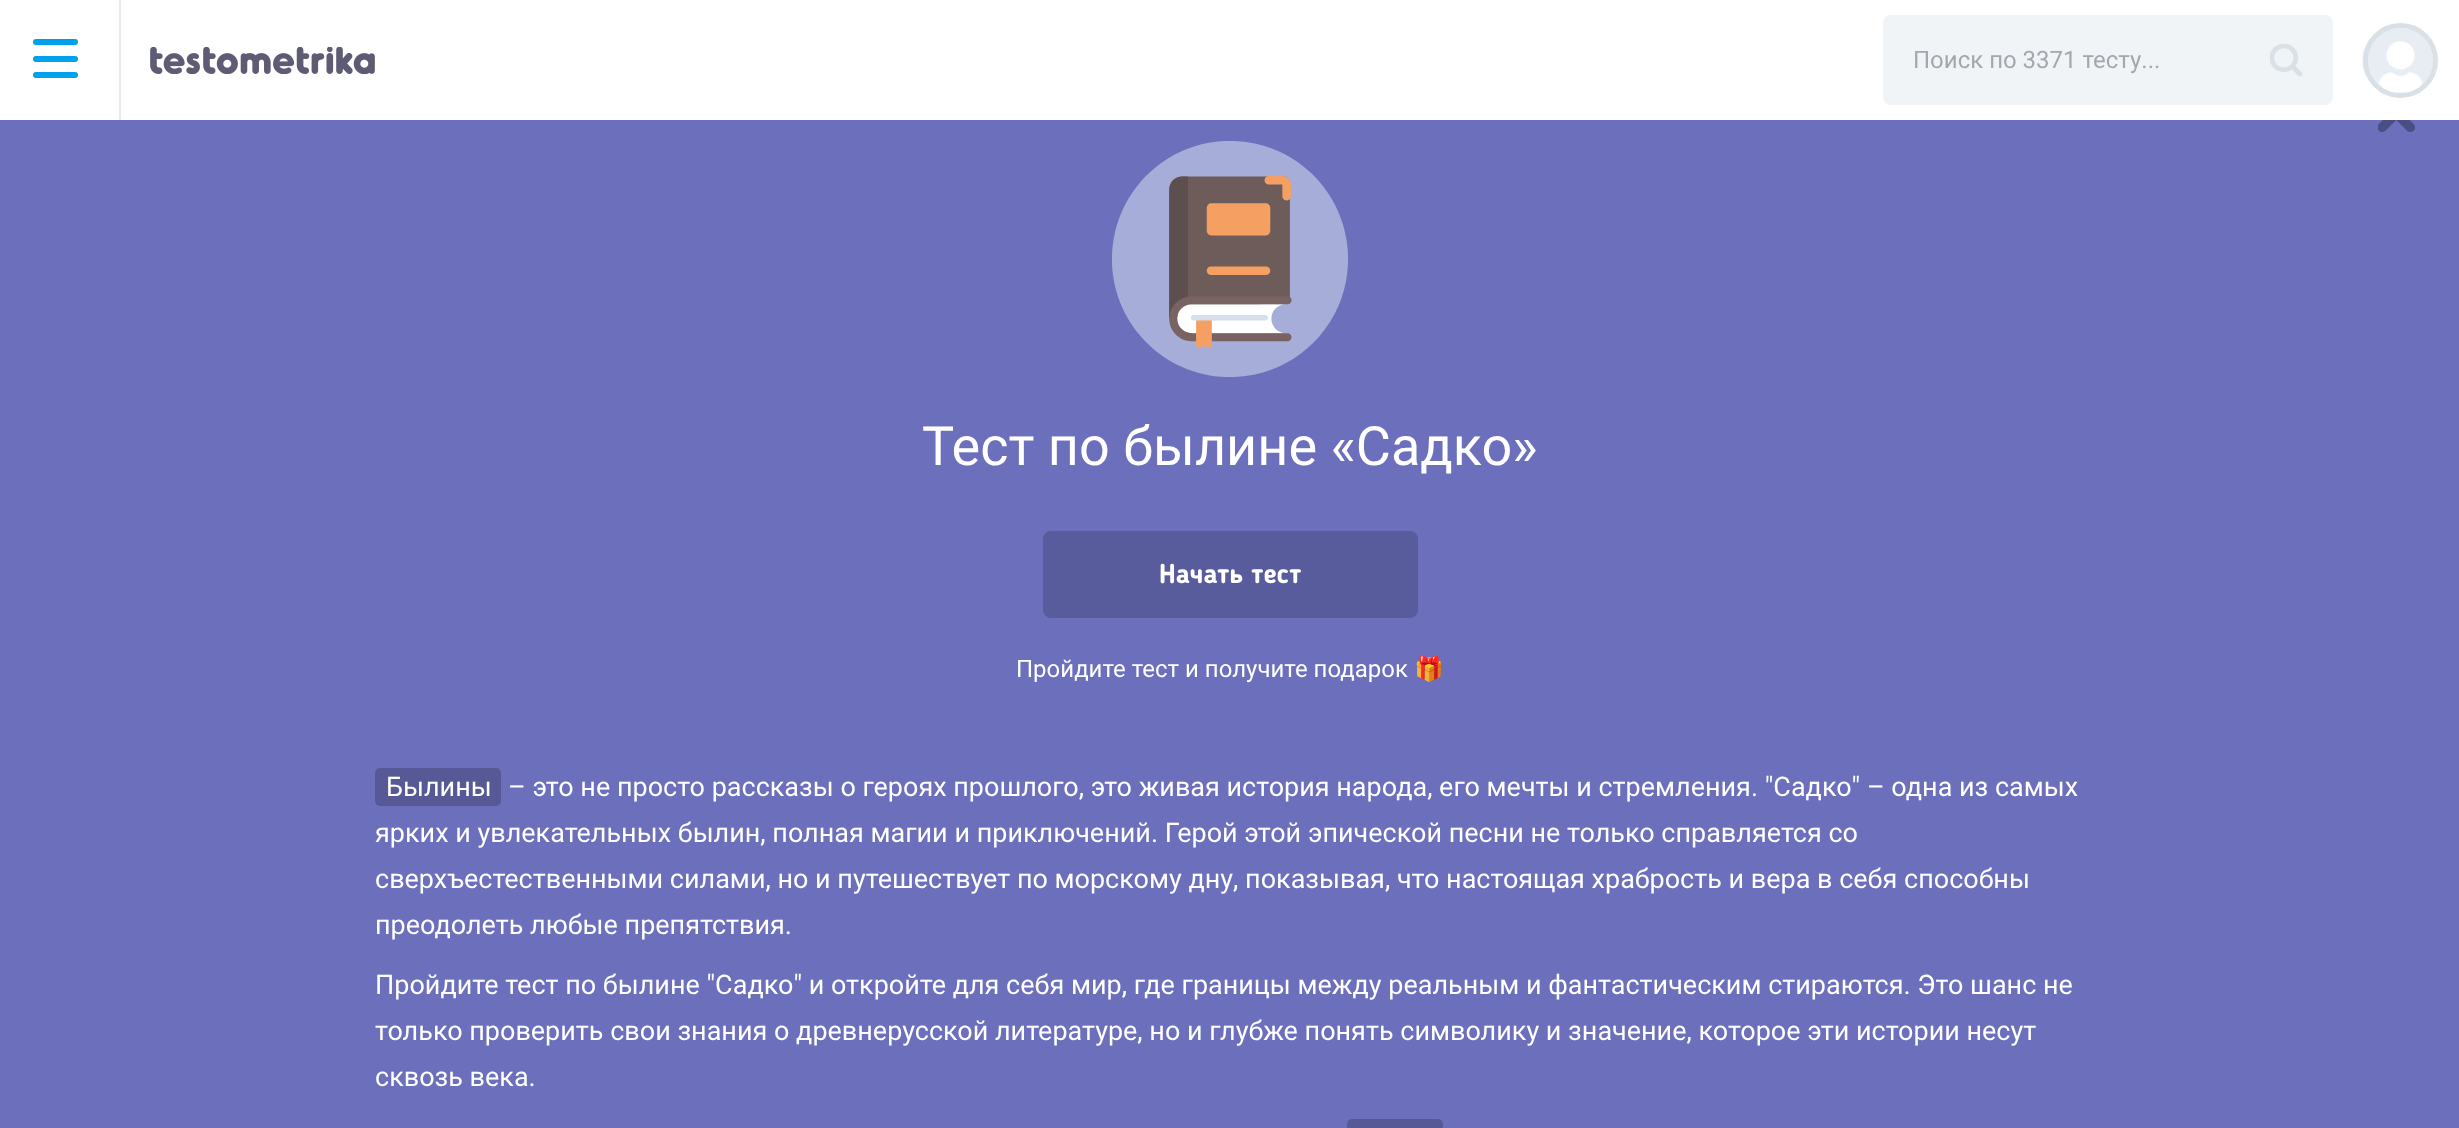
<svg xmlns="http://www.w3.org/2000/svg" width="2459" height="1128">
<rect width="100%" height="100%" fill="#6b6fbc"/>
<rect width="2459" height="120" fill="#fff"/>
<rect x="33" y="39" width="45" height="6" rx="3" fill="#00a1eb"/>
<rect x="33" y="56" width="45" height="6" rx="3" fill="#00a1eb"/>
<rect x="33" y="72" width="45" height="6" rx="3" fill="#00a1eb"/>
<rect x="119" width="2" height="120" fill="#eaeaea"/>
<image x="150" y="47" width="225" height="27" href="media/1.png"/>
<rect x="1883" y="15" width="450" height="90" rx="8" fill="#f1f4f7"/>
<text x="1913" y="68" style="font-family:Roboto;font-size:24px;fill:#a3a7ae">Поиск по 3371 тесту...</text>
<image x="2270" y="44" width="33" height="33" href="media/2.png"/>
<image x="2362" y="28" width="76" height="70" href="media/3.png"/>
<circle cx="2400.5" cy="60.5" r="35" fill="none" stroke="#d9e1e7" stroke-width="5"/>
<image x="2378" y="120" width="37" height="12" href="media/4.png"/>
<image x="1112" y="141" width="236" height="236" href="media/5.png"/>
<text x="922" y="465" style="font-family:Roboto;font-size:54px;fill:#fff">Тест по былине «Садко»</text>
<rect x="1043" y="531" width="375" height="87" rx="8" fill="#595c9c"/>
<text x="1159" y="583" style="font-family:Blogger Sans;font-size:27px;font-weight:bold;fill:#fff">Начать тест</text>
<text x="1016" y="677" style="font-family:Roboto;font-size:24px;fill:#fff">Пройдите тест и получите подарок</text>
<text x="1414" y="677" style="font-family:Noto Color Emoji;font-size:24px;fill:#fff">🎁</text>
<rect x="375" y="768" width="126" height="38" rx="5" fill="#565996"/>
<text x="386" y="796" style="font-family:Roboto;font-size:27px;fill:#fff">Былины</text>
<text x="508" y="796" style="font-family:Roboto;font-size:27px;fill:#fff">– это не просто рассказы о героях прошлого, это живая история народа, его мечты и стремления. "Садко" – одна из самых</text>
<text x="375" y="842" style="font-family:Roboto;font-size:27px;fill:#fff">ярких и увлекательных былин, полная магии и приключений. Герой этой эпической песни не только справляется со</text>
<text x="375" y="888" style="font-family:Roboto;font-size:27px;fill:#fff">сверхъестественными силами, но и путешествует по морскому дну, показывая, что настоящая храбрость и вера в себя способны</text>
<text x="375" y="934" style="font-family:Roboto;font-size:27px;fill:#fff">преодолеть любые препятствия.</text>
<text x="375" y="994" style="font-family:Roboto;font-size:27px;fill:#fff">Пройдите тест по былине "Садко" и откройте для себя мир, где границы между реальным и фантастическим стираются. Это шанс не</text>
<text x="375" y="1040" style="font-family:Roboto;font-size:27px;fill:#fff">только проверить свои знания о древнерусской литературе, но и глубже понять символику и значение, которое эти истории несут</text>
<text x="375" y="1086" style="font-family:Roboto;font-size:27px;fill:#fff">сквозь века.</text>
<rect x="1347" y="1119" width="96" height="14" rx="5" fill="#565996"/>
</svg>
